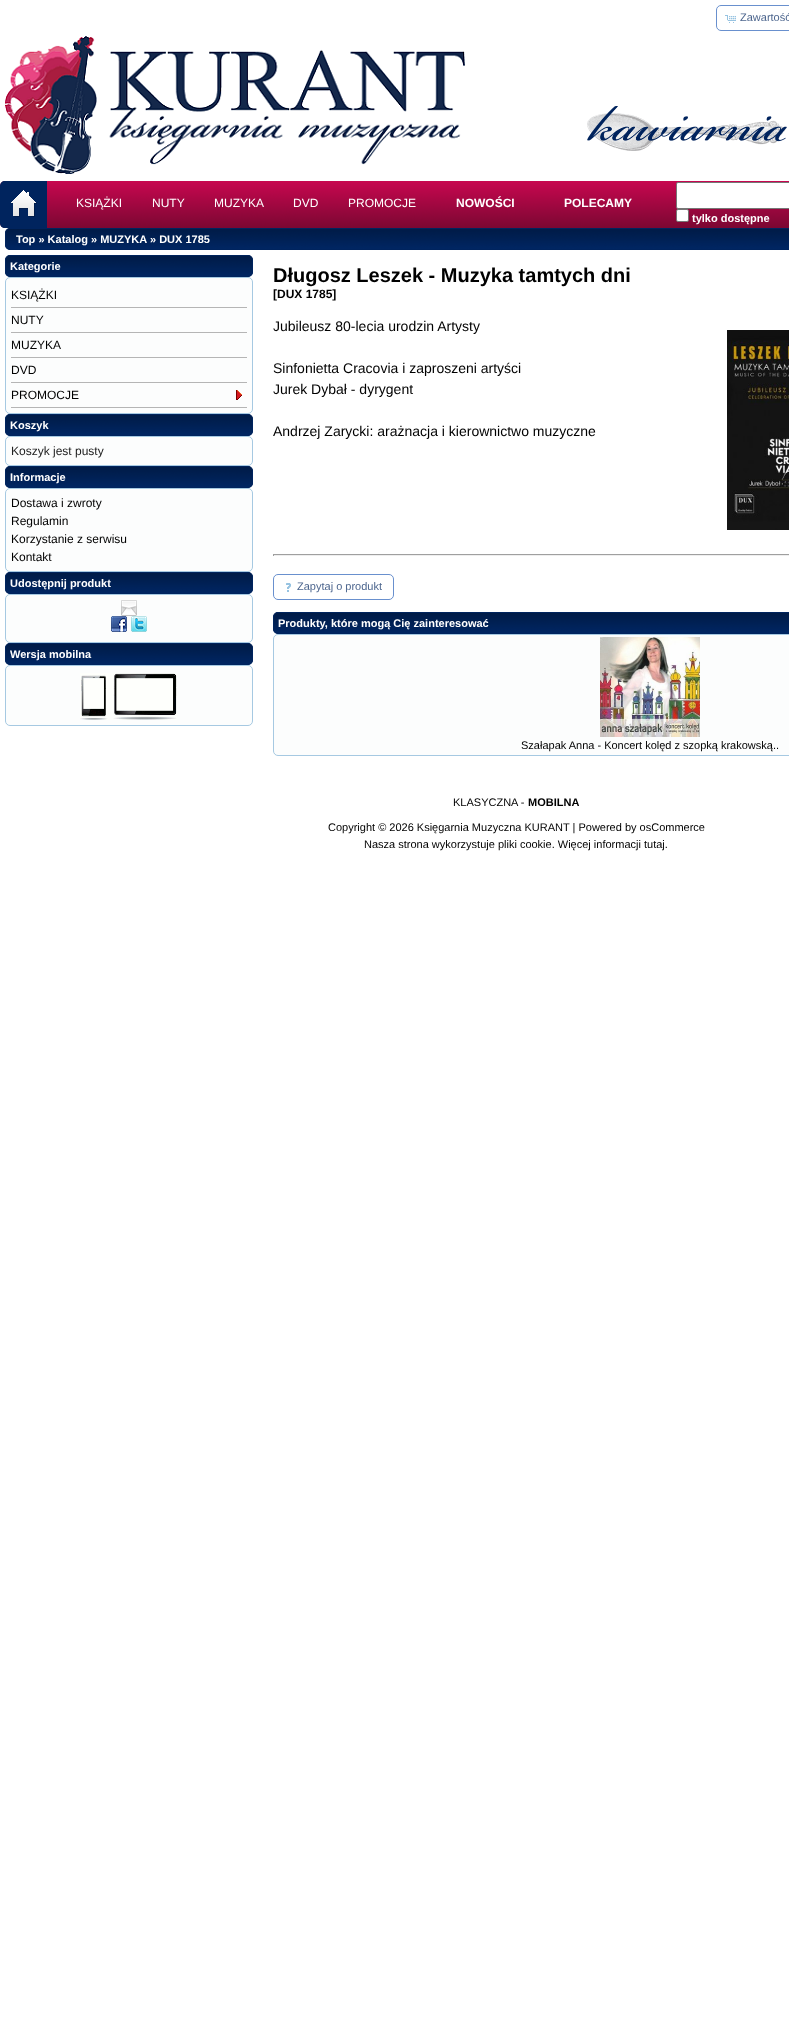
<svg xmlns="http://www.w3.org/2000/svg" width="789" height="2029">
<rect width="100%" height="100%" fill="#fff"/>
<path d="M721 5.5h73.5v25h-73.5c-2.5 0-4.5-2-4.5-4.5v-16c0-2.5 2-4.5 4.5-4.5z" fill="none" stroke="#6990ce"/>
<image x="725" y="15" width="11" height="8" href="media/1.png"/>
<text x="740" y="21" style="font-family:Liberation Sans;font-size:11px;fill:#4d668e">Zawartość</text>
<image x="5" y="36" width="460" height="138" href="media/2.png"/>
<image x="587" y="106" width="200" height="45" href="media/3.png"/>
<image x="0" y="181" width="789" height="47" href="media/4.png"/>
<path d="M5 181h42v47h-42c-3 0-5-2-5-5v-37c0-3 2-5 5-5z" fill="#00245e"/>
<image x="11" y="190" width="26" height="27" href="media/5.png"/>
<text x="76" y="207" style="font-family:Liberation Sans;font-size:12px;fill:#fff">KSIĄŻKI</text>
<text x="152" y="207" style="font-family:Liberation Sans;font-size:12px;fill:#fff">NUTY</text>
<text x="214" y="207" style="font-family:Liberation Sans;font-size:12px;fill:#fff">MUZYKA</text>
<text x="293" y="207" style="font-family:Liberation Sans;font-size:12px;fill:#fff">DVD</text>
<text x="348" y="207" style="font-family:Liberation Sans;font-size:12px;fill:#fff">PROMOCJE</text>
<text x="456" y="207" style="font-family:Liberation Sans;font-size:12px;font-weight:bold;fill:#fff">NOWOŚCI</text>
<text x="564" y="207" style="font-family:Liberation Sans;font-size:12px;font-weight:bold;fill:#fff">POLECAMY</text>
<rect x="676.5" y="182.5" width="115" height="26" rx="1.5" fill="#fff" stroke="#767676"/>
<rect x="676.5" y="209.5" width="12" height="12" rx="1.5" fill="#fff" stroke="#767676"/>
<text x="692" y="222" style="font-family:Liberation Sans;font-size:11px;font-weight:bold;fill:#fff">tylko dostępne</text>
<image x="5" y="228" width="784" height="22" href="media/6.png"/>
<rect x="5.5" y="228.5" width="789" height="21" rx="4.5" fill="none" stroke="#00245e"/>
<text x="16" y="243" style="font-family:Liberation Sans;font-size:11px;font-weight:bold;fill:#fff">Top » Katalog » MUZYKA</text>
<text x="150" y="243" style="font-family:Liberation Sans;font-size:11px;font-weight:bold;fill:#fff">» DUX 1785</text>
<image x="5" y="255" width="248" height="22" href="media/7.png"/>
<rect x="5.5" y="255.5" width="247" height="21" rx="4.5" fill="none" stroke="#00245e"/>
<text x="10" y="270" style="font-family:Liberation Sans;font-size:11px;font-weight:bold;fill:#fff">Kategorie</text>
<rect x="5.5" y="277.5" width="247" height="136" rx="4.5" fill="#fcfdfd" stroke="#a6c9e2"/>
<rect x="11" y="307" width="236" height="1" fill="#b5b5b5"/>
<text x="11" y="299" style="font-family:Liberation Sans;font-size:12px;fill:#000">KSIĄŻKI</text>
<rect x="11" y="332" width="236" height="1" fill="#b5b5b5"/>
<text x="11" y="324" style="font-family:Liberation Sans;font-size:12px;fill:#000">NUTY</text>
<rect x="11" y="357" width="236" height="1" fill="#b5b5b5"/>
<text x="11" y="349" style="font-family:Liberation Sans;font-size:12px;fill:#000">MUZYKA</text>
<rect x="11" y="382" width="236" height="1" fill="#b5b5b5"/>
<text x="11" y="374" style="font-family:Liberation Sans;font-size:12px;fill:#000">DVD</text>
<rect x="11" y="407" width="236" height="1" fill="#b5b5b5"/>
<text x="11" y="399" style="font-family:Liberation Sans;font-size:12px;fill:#000">PROMOCJE</text>
<image x="236" y="390" width="6" height="10" href="media/8.png"/>
<image x="5" y="414" width="248" height="22" href="media/7.png"/>
<rect x="5.5" y="414.5" width="247" height="21" rx="4.5" fill="none" stroke="#00245e"/>
<text x="10" y="429" style="font-family:Liberation Sans;font-size:11px;font-weight:bold;fill:#fff">Koszyk</text>
<rect x="5.5" y="436.5" width="247" height="29" rx="4.5" fill="#fcfdfd" stroke="#a6c9e2"/>
<text x="11" y="455" style="font-family:Liberation Sans;font-size:12px;fill:#222">Koszyk jest pusty</text>
<image x="5" y="466" width="248" height="22" href="media/7.png"/>
<rect x="5.5" y="466.5" width="247" height="21" rx="4.5" fill="none" stroke="#00245e"/>
<text x="10" y="481" style="font-family:Liberation Sans;font-size:11px;font-weight:bold;fill:#fff">Informacje</text>
<rect x="5.5" y="488.5" width="247" height="83" rx="4.5" fill="#fcfdfd" stroke="#a6c9e2"/>
<text x="11" y="507" style="font-family:Liberation Sans;font-size:12px;fill:#000">Dostawa i zwroty</text>
<text x="11" y="525" style="font-family:Liberation Sans;font-size:12px;fill:#000">Regulamin</text>
<text x="11" y="543" style="font-family:Liberation Sans;font-size:12px;fill:#000">Korzystanie z serwisu</text>
<text x="11" y="561" style="font-family:Liberation Sans;font-size:12px;fill:#000">Kontakt</text>
<image x="5" y="572" width="248" height="22" href="media/7.png"/>
<rect x="5.5" y="572.5" width="247" height="21" rx="4.5" fill="none" stroke="#00245e"/>
<text x="10" y="587" style="font-family:Liberation Sans;font-size:11px;font-weight:bold;fill:#fff">Udostępnij produkt</text>
<rect x="5.5" y="594.5" width="247" height="48" rx="4.5" fill="#fcfdfd" stroke="#a6c9e2"/>
<image x="121" y="600" width="16" height="16" href="media/9.png"/>
<image x="111" y="616" width="16" height="16" href="media/10.png"/>
<image x="131" y="616" width="16" height="16" href="media/11.png"/>
<image x="5" y="643" width="248" height="22" href="media/7.png"/>
<rect x="5.5" y="643.5" width="247" height="21" rx="4.5" fill="none" stroke="#00245e"/>
<text x="10" y="658" style="font-family:Liberation Sans;font-size:11px;font-weight:bold;fill:#fff">Wersja mobilna</text>
<rect x="5.5" y="665.5" width="247" height="60" rx="4.5" fill="#fcfdfd" stroke="#a6c9e2"/>
<image x="80" y="673" width="97" height="47" href="media/12.png"/>
<text x="273" y="282" style="font-family:Liberation Sans;font-size:20px;font-weight:bold;fill:#000">Długosz Leszek - Muzyka tamtych dni</text>
<text x="273" y="298" style="font-family:Liberation Sans;font-size:12px;font-weight:bold;fill:#000">[DUX 1785]</text>
<text x="273" y="331" style="font-family:Liberation Sans;font-size:14px;fill:#000">Jubileusz 80-lecia urodzin Artysty</text>
<text x="273" y="373" style="font-family:Liberation Sans;font-size:14px;fill:#000">Sinfonietta Cracovia i zaproszeni artyści</text>
<text x="273" y="394" style="font-family:Liberation Sans;font-size:14px;fill:#000">Jurek Dybał - dyrygent</text>
<text x="273" y="436" style="font-family:Liberation Sans;font-size:14px;fill:#000">Andrzej Zarycki: arażnacja i kierownictwo muzyczne</text>
<rect x="727" y="330" width="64" height="200" fill="#000" filter="blur(0.5px)"/>
<image x="727" y="330" width="62" height="200" href="media/13.png"/>
<rect x="273" y="554" width="516" height="1" fill="#9f9f9f"/>
<rect x="273" y="555" width="516" height="1" fill="#eee"/>
<rect x="273" y="554" width="1" height="2" fill="#9f9f9f"/>
<rect x="273.5" y="574.5" width="120" height="25" rx="4.5" fill="none" stroke="#6990ce"/>
<image x="286" y="583" width="5" height="9" href="media/14.png"/>
<text x="297" y="590" style="font-family:Liberation Sans;font-size:11px;fill:#4d668e">Zapytaj o produkt</text>
<image x="273" y="612" width="516" height="22" href="media/15.png"/>
<rect x="273.5" y="612.5" width="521" height="21" rx="4.5" fill="none" stroke="#00245e"/>
<text x="278" y="627" style="font-family:Liberation Sans;font-size:11px;font-weight:bold;fill:#fff">Produkty, które mogą Cię zainteresować</text>
<rect x="273.5" y="634.5" width="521" height="121" rx="4.5" fill="#fcfdfd" stroke="#a6c9e2"/>
<image x="600" y="637" width="100" height="100" href="media/16.png"/>
<text x="521" y="749" style="font-family:Liberation Sans;font-size:11px;fill:#000">Szałapak Anna - Koncert kolęd z szopką krakowską..</text>
<text x="453" y="806" style="font-family:Liberation Sans;font-size:11px;fill:#000">KLASYCZNA -</text>
<text x="528" y="806" style="font-family:Liberation Sans;font-size:11px;font-weight:bold;fill:#000">MOBILNA</text>
<text x="328" y="831" style="font-family:Liberation Sans;font-size:11px;fill:#000">Copyright © 2026 Księgarnia Muzyczna KURANT | Powered by osCommerce</text>
<text x="364" y="848" style="font-family:Liberation Sans;font-size:11px;fill:#000">Nasza strona wykorzystuje pliki cookie. Więcej informacji tutaj.</text>
</svg>
